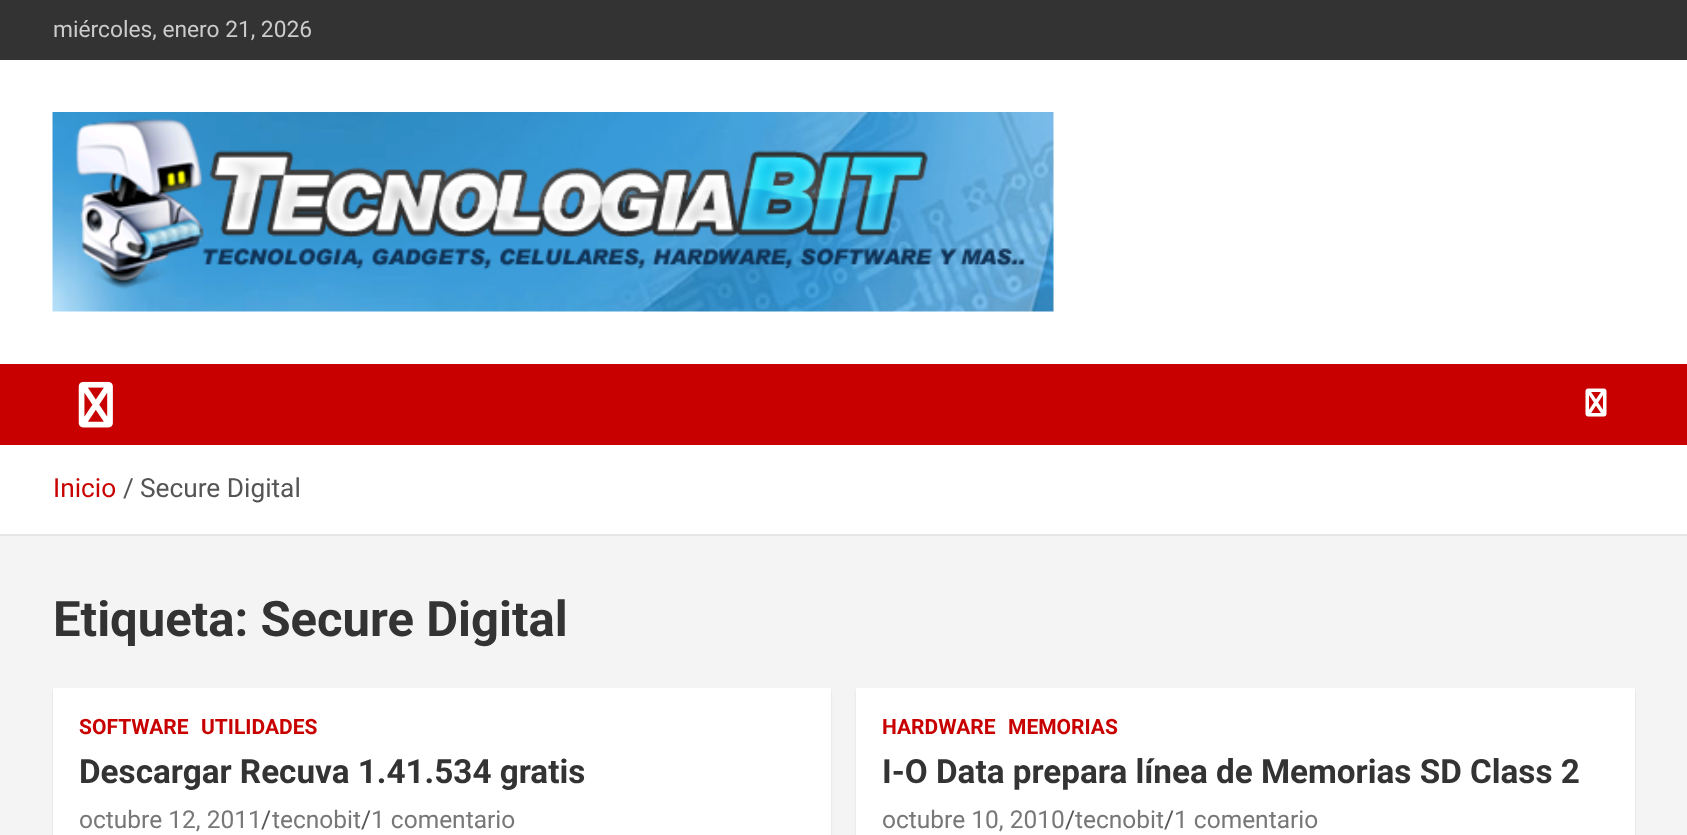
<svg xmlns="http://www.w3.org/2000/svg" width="1687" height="835">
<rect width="100%" height="100%" fill="#f4f4f4"/>
<rect width="1687" height="60" fill="#333"/>
<text x="53" y="37" style="font-family:Roboto;font-size:22.75px;fill:#ccc">miércoles, enero 21, 2026</text>
<rect y="60" width="1687" height="304" fill="#fff"/>
<image x="52" y="112" width="1002" height="200" href="media/1.png"/>
<rect y="364" width="1687" height="81" fill="#c80000"/>
<image x="78" y="381" width="35" height="47" href="media/2.png"/>
<image x="1585" y="388" width="22" height="29" href="media/3.png"/>
<rect y="445" width="1687" height="89" fill="#fff"/>
<rect y="534" width="1687" height="2" fill="#e6e6e6"/>
<text x="53" y="497" style="font-family:Roboto;font-size:26.25px;fill:#c80000">Inicio</text>
<text x="123" y="497" style="font-family:Roboto;font-size:26.25px;fill:#555">/</text>
<text x="140" y="497" style="font-family:Roboto;font-size:26.25px;fill:#555">Secure Digital</text>
<text x="53" y="636" style="font-family:Roboto;font-size:49px;font-weight:bold;fill:#333">Etiqueta: Secure Digital</text>
<rect x="53" y="690" width="778" height="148" fill="#0000001a" filter="blur(1px)"/>
<rect x="53" y="688" width="778" height="147" fill="#fff"/>
<text x="79" y="734" style="font-family:Roboto;font-size:21px;font-weight:bold;fill:#c80000">SOFTWARE</text>
<text x="201" y="734" style="font-family:Roboto;font-size:21px;font-weight:bold;fill:#c80000">UTILIDADES</text>
<text x="79" y="783" style="font-family:Roboto;font-size:33.25px;font-weight:bold;fill:#333">Descargar Recuva 1.41.534 gratis</text>
<text x="79" y="828" style="font-family:Roboto;font-size:24.5px;fill:#777">octubre 12, 2011</text>
<text x="261" y="828" style="font-family:Roboto;font-size:24.5px;fill:#555">/</text>
<text x="272" y="828" style="font-family:Roboto;font-size:24.5px;fill:#777">tecnobit</text>
<text x="361" y="828" style="font-family:Roboto;font-size:24.5px;fill:#555">/</text>
<text x="371" y="828" style="font-family:Roboto;font-size:24.5px;fill:#777">1 comentario</text>
<rect x="856" y="690" width="779" height="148" fill="#0000001a" filter="blur(1px)"/>
<rect x="856" y="688" width="779" height="147" fill="#fff"/>
<text x="882" y="734" style="font-family:Roboto;font-size:21px;font-weight:bold;fill:#c80000">HARDWARE</text>
<text x="1008" y="734" style="font-family:Roboto;font-size:21px;font-weight:bold;fill:#c80000">MEMORIAS</text>
<text x="882" y="783" style="font-family:Roboto;font-size:33.25px;font-weight:bold;fill:#333">I-O Data prepara línea de Memorias SD Class 2</text>
<text x="882" y="828" style="font-family:Roboto;font-size:24.5px;fill:#777">octubre 10, 2010</text>
<text x="1065" y="828" style="font-family:Roboto;font-size:24.5px;fill:#555">/</text>
<text x="1075" y="828" style="font-family:Roboto;font-size:24.5px;fill:#777">tecnobit</text>
<text x="1164" y="828" style="font-family:Roboto;font-size:24.5px;fill:#555">/</text>
<text x="1174" y="828" style="font-family:Roboto;font-size:24.5px;fill:#777">1 comentario</text>
</svg>
